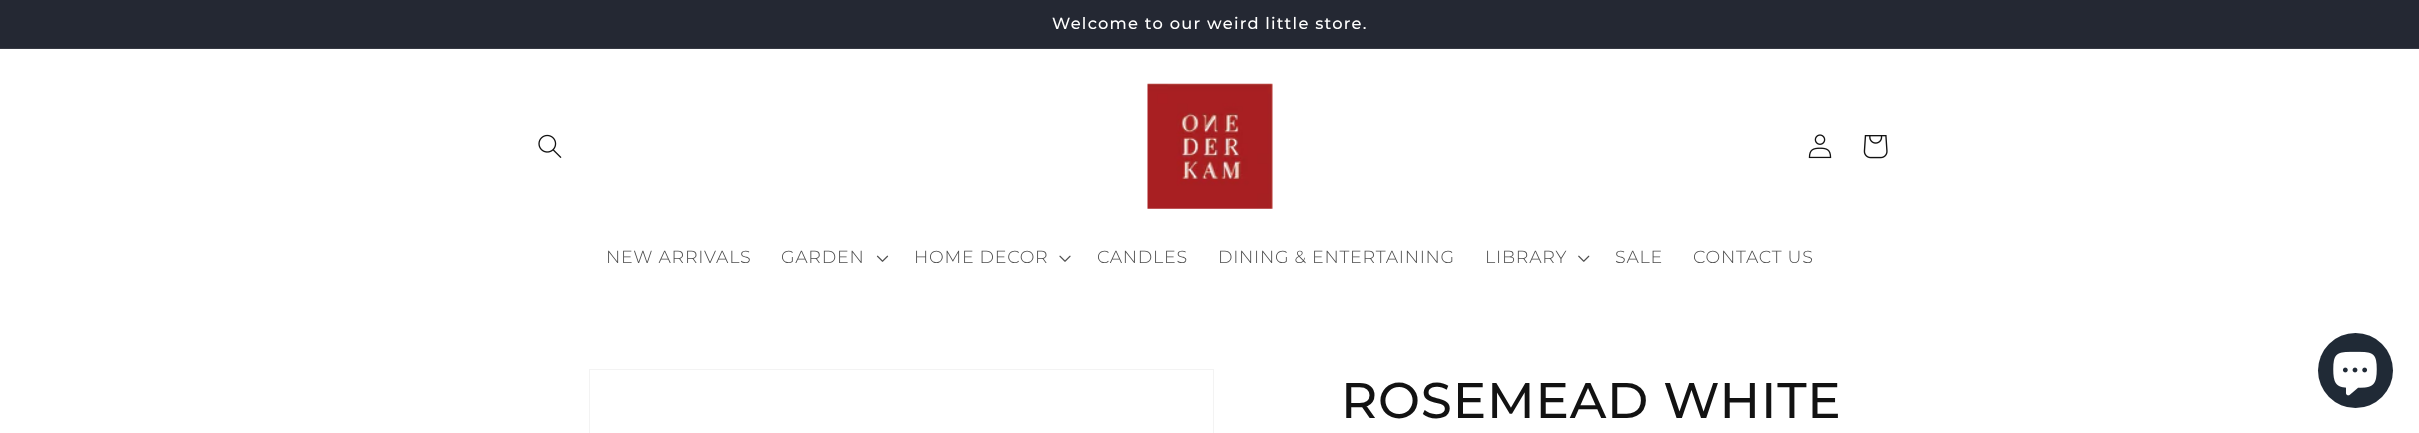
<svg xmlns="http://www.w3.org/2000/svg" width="2419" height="433">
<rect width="100%" height="100%" fill="#fff"/>
<rect width="2419" height="48" fill="#242833"/>
<rect y="48" width="2419" height="1" fill="#363943"/>
<text x="1052" y="29" style="font-family:Montserrat;font-size:16.25px;font-weight:500;letter-spacing:1.25px;fill:#fff">Welcome to our weird little store.</text>
<image x="538" y="134" width="24" height="24" href="media/1.png"/>
<image x="1147" y="83" width="126" height="126" href="media/2.png"/>
<image x="1808" y="134" width="24" height="25" href="media/3.png"/>
<image x="1863" y="135" width="25" height="24" href="media/4.png"/>
<text x="606" y="263" style="font-family:Montserrat;font-size:17.5px;font-weight:300;letter-spacing:0.75px;fill:#4d4d4d">NEW ARRIVALS</text>
<text x="781" y="263" style="font-family:Montserrat;font-size:17.5px;font-weight:300;letter-spacing:0.75px;fill:#4d4d4d">GARDEN</text>
<image x="876" y="255" width="13" height="7" href="media/5.png"/>
<text x="914" y="263" style="font-family:Montserrat;font-size:17.5px;font-weight:300;letter-spacing:0.75px;fill:#4d4d4d">HOME DECOR</text>
<image x="1059" y="255" width="12" height="7" href="media/6.png"/>
<text x="1097" y="263" style="font-family:Montserrat;font-size:17.5px;font-weight:300;letter-spacing:0.75px;fill:#4d4d4d">CANDLES</text>
<text x="1218" y="263" style="font-family:Montserrat;font-size:17.5px;font-weight:300;letter-spacing:0.75px;fill:#4d4d4d">DINING &amp; ENTERTAINING</text>
<text x="1485" y="263" style="font-family:Montserrat;font-size:17.5px;font-weight:300;letter-spacing:0.75px;fill:#4d4d4d">LIBRARY</text>
<image x="1578" y="255" width="12" height="7" href="media/7.png"/>
<text x="1615" y="263" style="font-family:Montserrat;font-size:17.5px;font-weight:300;letter-spacing:0.75px;fill:#4d4d4d">SALE</text>
<text x="1693" y="263" style="font-family:Montserrat;font-size:17.5px;font-weight:300;letter-spacing:0.75px;fill:#4d4d4d">CONTACT US</text>
<rect x="589.5" y="369.5" width="624" height="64" fill="none" stroke="#f3f3f3"/>
<text x="1341" y="418" style="font-family:Montserrat;font-size:50px;font-weight:500;letter-spacing:0.75px;fill:#121212">ROSEMEAD WHITE</text>
<circle cx="2355.5" cy="370.5" r="37.5" fill="#202a36"/>
<image x="2333" y="351" width="44" height="45" href="media/8.png"/>
</svg>
